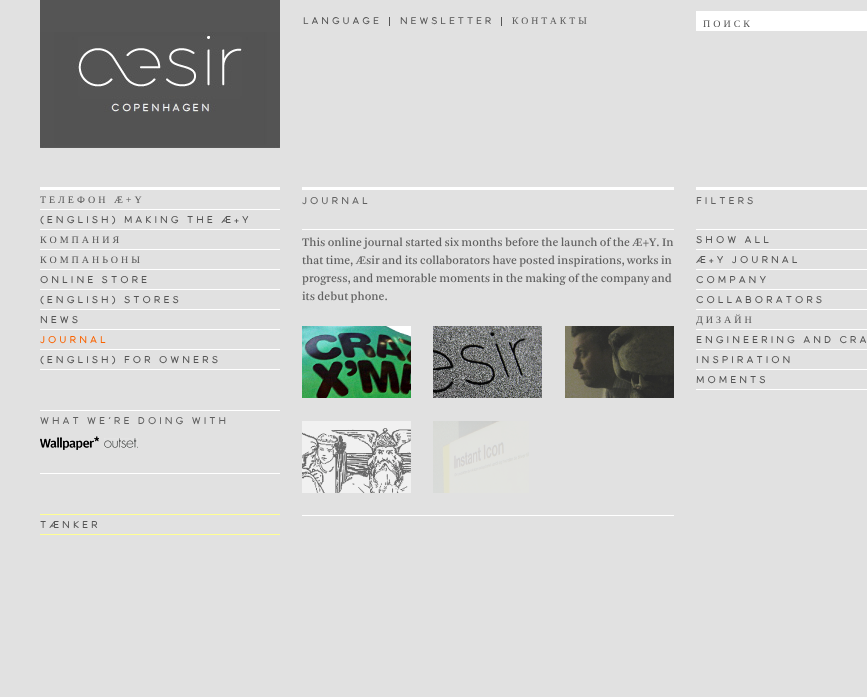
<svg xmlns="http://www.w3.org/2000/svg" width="867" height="697">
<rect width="100%" height="100%" fill="#e1e1e1"/>
<rect x="40" width="240" height="32" fill="#555"/>
<image x="40" y="32" width="240" height="116" href="media/1.png"/>
<text x="303" y="24" style="font-family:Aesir;font-size:9.75px;font-weight:900;letter-spacing:3px;fill:#555">LANGUAGE</text>
<rect x="389" y="17" width="1" height="9" fill="#555"/>
<text x="400" y="24" style="font-family:Aesir;font-size:9.75px;font-weight:900;letter-spacing:3px;fill:#555">NEWSLETTER</text>
<rect x="501" y="17" width="1" height="9" fill="#555"/>
<text x="512" y="24" style="font-family:Liberation Serif;font-size:9.75px;letter-spacing:3px;fill:#555">КОНТАКТЫ</text>
<rect x="696" y="11" width="171" height="20" fill="#fff"/>
<text x="703" y="27" style="font-family:Liberation Serif;font-size:10px;letter-spacing:3px;fill:#555">ПОИСК</text>
<rect x="40" y="187" width="240" height="3" fill="#fff"/>
<text x="40" y="203" style="font-family:Liberation Serif;font-size:10px;letter-spacing:3px;fill:#555">ТЕЛЕФОН Æ+Y</text>
<rect x="40" y="209" width="240" height="1" fill="#fff"/>
<text x="40" y="223" style="font-family:Aesir;font-size:10px;font-weight:900;letter-spacing:3px;fill:#555">(ENGLISH) MAKING THE Æ+Y</text>
<rect x="40" y="229" width="240" height="1" fill="#fff"/>
<text x="40" y="243" style="font-family:Liberation Serif;font-size:10px;letter-spacing:3px;fill:#555">КОМПАНИЯ</text>
<rect x="40" y="249" width="240" height="1" fill="#fff"/>
<text x="40" y="263" style="font-family:Liberation Serif;font-size:10px;letter-spacing:3px;fill:#555">КОМПАНЬОНЫ</text>
<rect x="40" y="269" width="240" height="1" fill="#fff"/>
<text x="40" y="283" style="font-family:Aesir;font-size:10px;font-weight:900;letter-spacing:3px;fill:#555">ONLINE STORE</text>
<rect x="40" y="289" width="240" height="1" fill="#fff"/>
<text x="40" y="303" style="font-family:Aesir;font-size:10px;font-weight:900;letter-spacing:3px;fill:#555">(ENGLISH) STORES</text>
<rect x="40" y="309" width="240" height="1" fill="#fff"/>
<text x="40" y="323" style="font-family:Aesir;font-size:10px;font-weight:900;letter-spacing:3px;fill:#555">NEWS</text>
<rect x="40" y="329" width="240" height="1" fill="#fff"/>
<text x="40" y="343" style="font-family:Aesir;font-size:10px;font-weight:900;letter-spacing:3px;fill:#fa6300">JOURNAL</text>
<rect x="40" y="349" width="240" height="1" fill="#fff"/>
<rect x="40" y="369" width="240" height="1" fill="#fff"/>
<text x="40" y="363" style="font-family:Aesir;font-size:10px;font-weight:900;letter-spacing:3px;fill:#555">(ENGLISH) FOR OWNERS</text>
<rect x="40" y="410" width="240" height="1" fill="#fff"/>
<rect x="40" y="473" width="240" height="1" fill="#fff"/>
<text x="40" y="424" style="font-family:Aesir;font-size:10px;font-weight:900;letter-spacing:3px;fill:#606060">WHAT WE'RE DOING WITH</text>
<image x="40" y="436" width="59" height="14" href="media/2.png"/>
<image x="104" y="438" width="34" height="10" href="media/3.png"/>
<rect x="40" y="514" width="240" height="1" fill="#ffff94"/>
<rect x="40" y="534" width="240" height="1" fill="#ffff94"/>
<text x="40" y="528" style="font-family:Aesir;font-size:10px;font-weight:900;letter-spacing:3px;fill:#555">TÆNKER</text>
<rect x="302" y="187" width="372" height="3" fill="#fff"/>
<text x="302" y="204" style="font-family:Aesir;font-size:10px;font-weight:900;letter-spacing:3px;fill:#606060">JOURNAL</text>
<rect x="302" y="229" width="372" height="1" fill="#fff"/>
<text x="302" y="246" style="font-family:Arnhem;font-size:12px;font-weight:500;fill:#606060">This online journal started six months before the launch of the Æ+Y. In</text>
<text x="302" y="264" style="font-family:Arnhem;font-size:12px;font-weight:500;fill:#606060">that time, Æsir and its collaborators have posted inspirations, works in</text>
<text x="302" y="282" style="font-family:Arnhem;font-size:12px;font-weight:500;fill:#606060">progress, and memorable moments in the making of the company and</text>
<text x="302" y="300" style="font-family:Arnhem;font-size:12px;font-weight:500;fill:#606060">its debut phone.</text>
<image x="302" y="326" width="109" height="72" href="media/4.png"/>
<image x="433" y="326" width="109" height="72" href="media/5.png"/>
<image x="565" y="326" width="109" height="72" href="media/6.png"/>
<image x="302" y="421" width="109" height="72" href="media/7.png"/>
<image x="433" y="421" width="96" height="72" href="media/8.png"/>
<rect x="302" y="515" width="372" height="1" fill="#fff"/>
<rect x="696" y="187" width="171" height="3" fill="#fff"/>
<text x="696" y="204" style="font-family:Aesir;font-size:10px;font-weight:900;letter-spacing:3px;fill:#606060">FILTERS</text>
<rect x="696" y="229" width="171" height="1" fill="#fff"/>
<text x="696" y="243" style="font-family:Aesir;font-size:10px;font-weight:900;letter-spacing:3px;fill:#555">SHOW ALL</text>
<rect x="696" y="249" width="171" height="1" fill="#fff"/>
<text x="696" y="263" style="font-family:Aesir;font-size:10px;font-weight:900;letter-spacing:3px;fill:#555">Æ+Y JOURNAL</text>
<rect x="696" y="269" width="171" height="1" fill="#fff"/>
<text x="696" y="283" style="font-family:Aesir;font-size:10px;font-weight:900;letter-spacing:3px;fill:#555">COMPANY</text>
<rect x="696" y="289" width="171" height="1" fill="#fff"/>
<text x="696" y="303" style="font-family:Aesir;font-size:10px;font-weight:900;letter-spacing:3px;fill:#555">COLLABORATORS</text>
<rect x="696" y="309" width="171" height="1" fill="#fff"/>
<text x="696" y="323" style="font-family:Liberation Serif;font-size:10px;letter-spacing:3px;fill:#555">ДИЗАЙН</text>
<rect x="696" y="329" width="171" height="1" fill="#fff"/>
<text x="696" y="343" style="font-family:Aesir;font-size:10px;font-weight:900;letter-spacing:3px;fill:#555">ENGINEERING AND CRA</text>
<rect x="696" y="349" width="171" height="1" fill="#fff"/>
<text x="696" y="363" style="font-family:Aesir;font-size:10px;font-weight:900;letter-spacing:3px;fill:#555">INSPIRATION</text>
<rect x="696" y="369" width="171" height="1" fill="#fff"/>
<rect x="696" y="389" width="171" height="1" fill="#fff"/>
<text x="696" y="383" style="font-family:Aesir;font-size:10px;font-weight:900;letter-spacing:3px;fill:#555">MOMENTS</text>
</svg>
